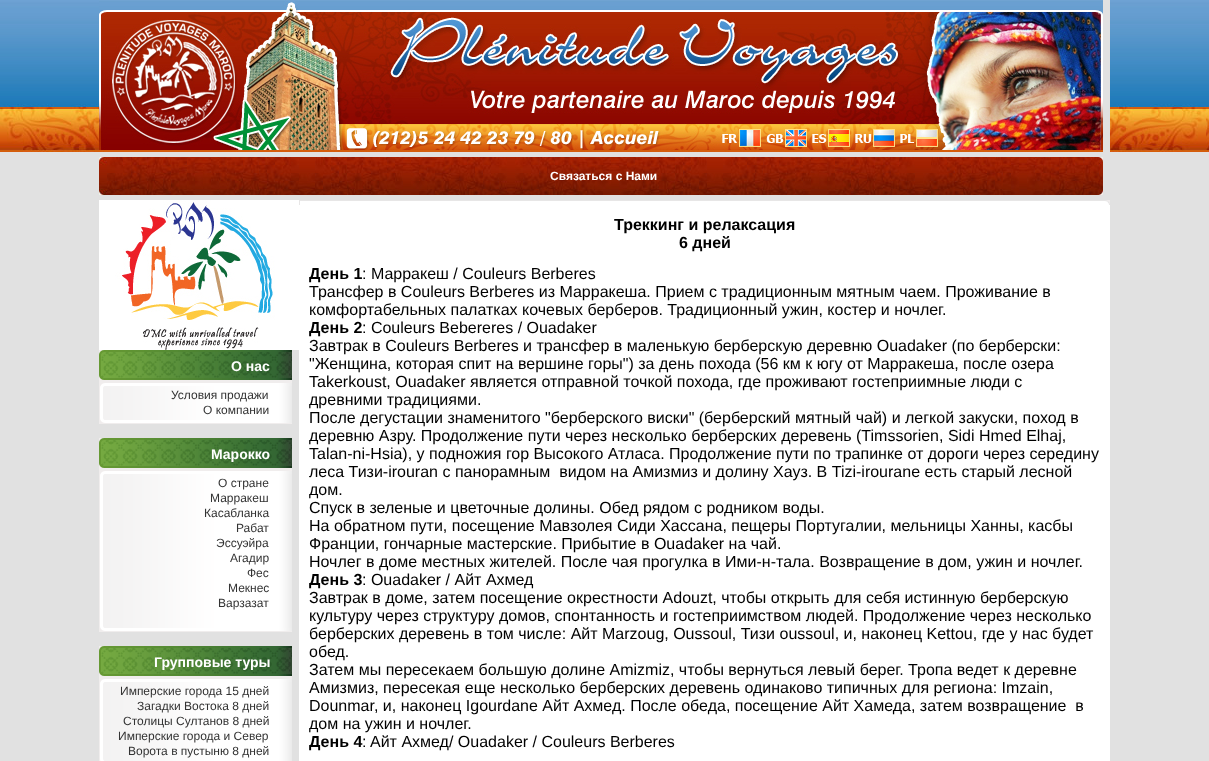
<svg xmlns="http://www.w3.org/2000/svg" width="1209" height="761">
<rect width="100%" height="100%" fill="#e1e1e1"/>
<image x="0" y="0" width="99" height="152" href="media/1.png"/>
<image x="1110" y="0" width="99" height="152" href="media/2.png"/>
<image x="99" y="0" width="1004" height="10" href="media/3.png"/>
<image x="99" y="10" width="1004" height="142" href="media/4.png"/>
<image x="99" y="157" width="1004" height="38" href="media/5.png"/>
<text x="550" y="180" style="font-family:Liberation Sans;font-size:12px;font-weight:bold;fill:#fff">Связаться с Нами</text>
<image x="99" y="200" width="200" height="150" href="media/6.png"/>
<image x="99" y="350" width="193" height="32" href="media/7.png"/>
<text x="231" y="371" style="font-family:Liberation Sans;font-size:14px;font-weight:bold;fill:#fff">О нас</text>
<image x="99" y="382" width="193" height="6" href="media/8.png"/>
<image x="99" y="388" width="193" height="30" href="media/9.png"/>
<text x="171" y="399" style="font-family:Liberation Sans;font-size:12px;fill:#333">Условия продажи</text>
<text x="203" y="414" style="font-family:Liberation Sans;font-size:12px;fill:#333">О компании</text>
<image x="99" y="418" width="193" height="6" href="media/10.png"/>
<image x="99" y="438" width="193" height="32" href="media/7.png"/>
<text x="211" y="459" style="font-family:Liberation Sans;font-size:14px;font-weight:bold;fill:#fff">Марокко</text>
<image x="99" y="470" width="193" height="6" href="media/8.png"/>
<image x="99" y="476" width="193" height="150" href="media/11.png"/>
<text x="218" y="487" style="font-family:Liberation Sans;font-size:12px;fill:#333">О стране</text>
<text x="210" y="502" style="font-family:Liberation Sans;font-size:12px;fill:#333">Марракеш</text>
<text x="204" y="517" style="font-family:Liberation Sans;font-size:12px;fill:#333">Касабланка</text>
<text x="236" y="532" style="font-family:Liberation Sans;font-size:12px;fill:#333">Рабат</text>
<text x="216" y="547" style="font-family:Liberation Sans;font-size:12px;fill:#333">Эссуэйра</text>
<text x="230" y="562" style="font-family:Liberation Sans;font-size:12px;fill:#333">Агадир</text>
<text x="247" y="577" style="font-family:Liberation Sans;font-size:12px;fill:#333">Фес</text>
<text x="228" y="592" style="font-family:Liberation Sans;font-size:12px;fill:#333">Мекнес</text>
<text x="218" y="607" style="font-family:Liberation Sans;font-size:12px;fill:#333">Варзазат</text>
<image x="99" y="626" width="193" height="6" href="media/10.png"/>
<image x="99" y="646" width="193" height="32" href="media/7.png"/>
<text x="154" y="667" style="font-family:Liberation Sans;font-size:14px;font-weight:bold;fill:#fff">Групповые туры</text>
<image x="99" y="678" width="193" height="6" href="media/8.png"/>
<image x="99" y="684" width="193" height="75" href="media/12.png"/>
<text x="120" y="695" style="font-family:Liberation Sans;font-size:12px;fill:#333">Имперские города 15 дней</text>
<text x="137" y="710" style="font-family:Liberation Sans;font-size:12px;fill:#333">Загадки Востока 8 дней</text>
<text x="123" y="725" style="font-family:Liberation Sans;font-size:12px;fill:#333">Столицы Султанов 8 дней</text>
<text x="118" y="740" style="font-family:Liberation Sans;font-size:12px;fill:#333">Имперские города и Север</text>
<text x="128" y="755" style="font-family:Liberation Sans;font-size:12px;fill:#333">Ворота в пустыню 8 дней</text>
<image x="99" y="759" width="193" height="2" href="media/13.png"/>
<rect x="299" y="205" width="811" height="556" fill="#fff"/>
<image x="299" y="200" width="811" height="5" href="media/14.png"/>
<text x="614" y="230" style="font-family:Liberation Sans;font-size:16px;font-weight:bold;fill:#000">Треккинг и релаксация</text>
<text x="679" y="248" style="font-family:Liberation Sans;font-size:16px;font-weight:bold;fill:#000">6 дней</text>
<text x="309" y="279" style="font-family:Liberation Sans;font-size:16px;font-weight:bold;fill:#000">День 1</text>
<text x="362" y="279" style="font-family:Liberation Sans;font-size:16px;fill:#000">: Марракеш / Couleurs Berberes</text>
<text x="309" y="297" style="font-family:Liberation Sans;font-size:16px;fill:#000">Трансфер в Couleurs Berberes из Марракеша. Прием с традиционным мятным чаем. Проживание в</text>
<text x="309" y="315" style="font-family:Liberation Sans;font-size:16px;fill:#000">комфортабельных палатках кочевых берберов. Традиционный ужин, костер и ночлег.</text>
<text x="309" y="333" style="font-family:Liberation Sans;font-size:16px;font-weight:bold;fill:#000">День 2</text>
<text x="362" y="333" style="font-family:Liberation Sans;font-size:16px;fill:#000">: Couleurs Bebereres / Ouadaker</text>
<text x="309" y="351" style="font-family:Liberation Sans;font-size:16px;fill:#000">Завтрак в Couleurs Berberes и трансфер в маленькую берберскую деревню Ouadaker (по берберски:</text>
<text x="309" y="369" style="font-family:Liberation Sans;font-size:16px;fill:#000">"Женщина, которая спит на вершине горы") за день похода (56 км к югу от Марракеша, после озера</text>
<text x="309" y="387" style="font-family:Liberation Sans;font-size:16px;fill:#000">Takerkoust, Ouadaker является отправной точкой похода, где проживают гостеприимные люди с</text>
<text x="309" y="405" style="font-family:Liberation Sans;font-size:16px;fill:#000">древними традициями.</text>
<text x="309" y="423" style="font-family:Liberation Sans;font-size:16px;fill:#000">После дегустации знаменитого "берберского виски" (берберский мятный чай) и легкой закуски, поход в</text>
<text x="309" y="441" style="font-family:Liberation Sans;font-size:16px;fill:#000">деревню Азру. Продолжение пути через несколько берберских деревень (Timssorien, Sidi Hmed Elhaj,</text>
<text x="309" y="459" style="font-family:Liberation Sans;font-size:16px;fill:#000">Talan-ni-Hsia), у подножия гор Высокого Атласа. Продолжение пути по трапинке от дороги через середину</text>
<text x="309" y="477" style="font-family:Liberation Sans;font-size:16px;fill:#000" xml:space="preserve">леса Тизи-irouran с панорамным  видом на Амизмиз и долину Хауз. В Tizi-irourane есть старый лесной</text>
<text x="309" y="495" style="font-family:Liberation Sans;font-size:16px;fill:#000">дом.</text>
<text x="309" y="513" style="font-family:Liberation Sans;font-size:16px;fill:#000">Спуск в зеленые и цветочные долины. Обед рядом с родником воды.</text>
<text x="309" y="531" style="font-family:Liberation Sans;font-size:16px;fill:#000">На обратном пути, посещение Мавзолея Сиди Хассана, пещеры Португалии, мельницы Ханны, касбы</text>
<text x="309" y="549" style="font-family:Liberation Sans;font-size:16px;fill:#000">Франции, гончарные мастерские. Прибытие в Ouadaker на чай.</text>
<text x="309" y="567" style="font-family:Liberation Sans;font-size:16px;fill:#000">Ночлег в доме местных жителей. После чая прогулка в Ими-н-тала. Возвращение в дом, ужин и ночлег.</text>
<text x="309" y="585" style="font-family:Liberation Sans;font-size:16px;font-weight:bold;fill:#000">День 3</text>
<text x="362" y="585" style="font-family:Liberation Sans;font-size:16px;fill:#000">: Ouadaker / Айт Ахмед</text>
<text x="309" y="603" style="font-family:Liberation Sans;font-size:16px;fill:#000">Завтрак в доме, затем посещение окрестности Adouzt, чтобы открыть для себя истинную берберскую</text>
<text x="309" y="621" style="font-family:Liberation Sans;font-size:16px;fill:#000">культуру через структуру домов, спонтанность и гостеприимством людей. Продолжение через несколько</text>
<text x="309" y="639" style="font-family:Liberation Sans;font-size:16px;fill:#000">берберских деревень в том числе: Айт Marzoug, Oussoul, Тизи oussoul, и, наконец Kettou, где у нас будет</text>
<text x="309" y="657" style="font-family:Liberation Sans;font-size:16px;fill:#000">обед.</text>
<text x="309" y="675" style="font-family:Liberation Sans;font-size:16px;fill:#000">Затем мы пересекаем большую долине Amizmiz, чтобы вернуться левый берег. Тропа ведет к деревне</text>
<text x="309" y="693" style="font-family:Liberation Sans;font-size:16px;fill:#000">Амизмиз, пересекая еще несколько берберских деревень одинаково типичных для региона: Imzain,</text>
<text x="309" y="711" style="font-family:Liberation Sans;font-size:16px;fill:#000" xml:space="preserve">Dounmar, и, наконец Igourdane Айт Ахмед. После обеда, посещение Айт Хамеда, затем возвращение  в</text>
<text x="309" y="729" style="font-family:Liberation Sans;font-size:16px;fill:#000">дом на ужин и ночлег.</text>
<text x="309" y="747" style="font-family:Liberation Sans;font-size:16px;font-weight:bold;fill:#000">День 4</text>
<text x="362" y="747" style="font-family:Liberation Sans;font-size:16px;fill:#000">: Aйт Ахмед/ Ouadaker / Couleurs Berberes</text>
</svg>
